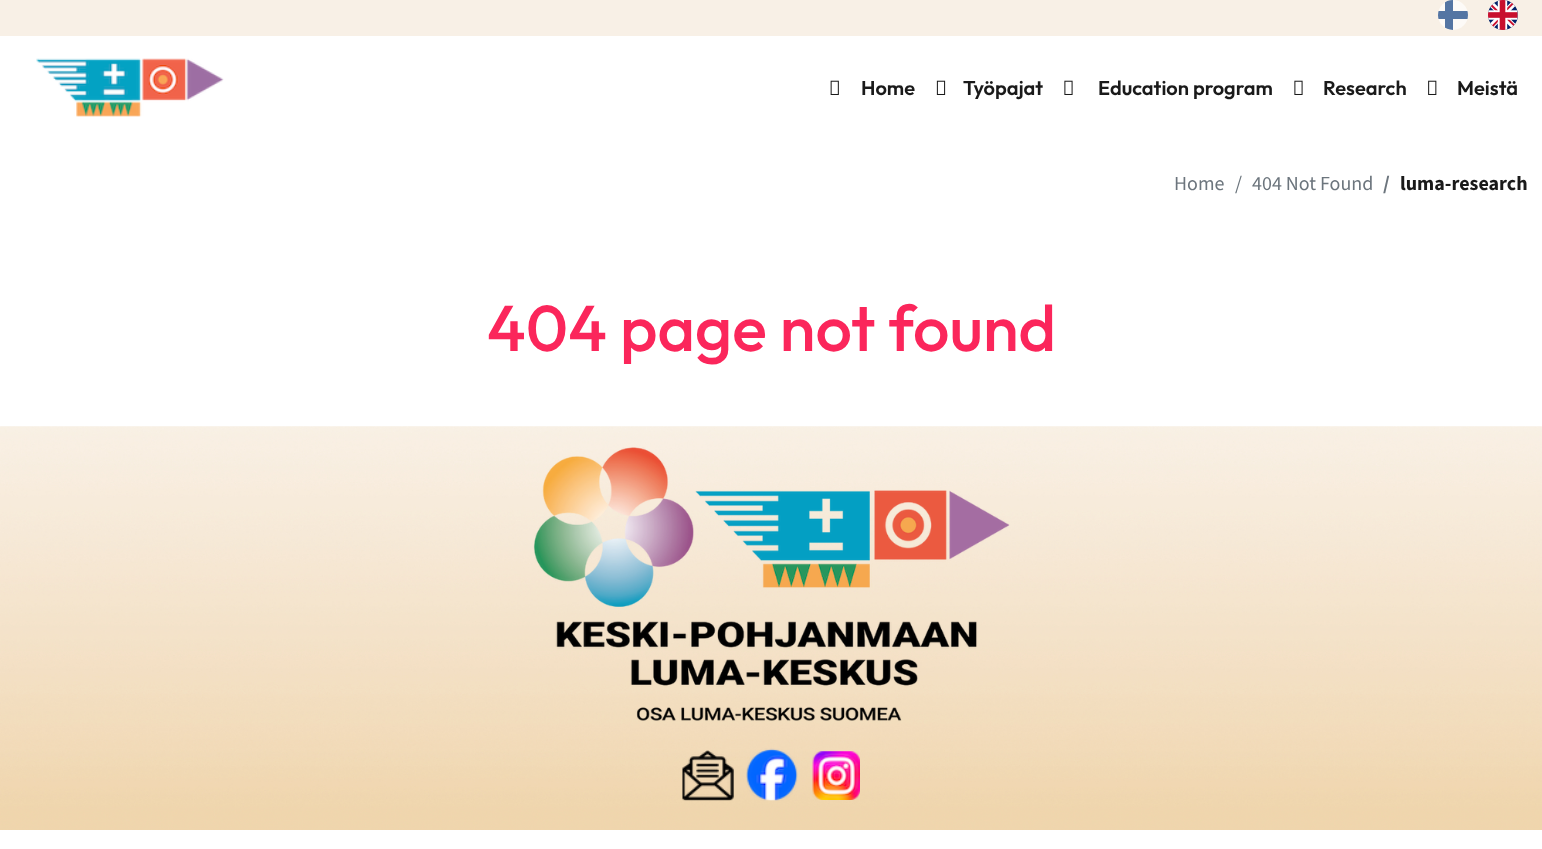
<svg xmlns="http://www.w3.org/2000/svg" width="1542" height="849">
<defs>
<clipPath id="clip1"><rect x="1438" width="30" height="30" rx="15"/></clipPath>
</defs>
<rect width="100%" height="100%" fill="#fff"/>
<rect width="1542" height="36" fill="#f8f0e6"/>
<circle cx="1453" cy="15" r="15" fill="#fdfaf7"/>
<g clip-path="url(#clip1)">
<rect x="1438" y="11" width="30" height="8" fill="#5475a3"/>
<rect x="1445" width="8" height="30" fill="#5475a3"/>
</g>
<image x="1488" y="0" width="30" height="30" href="media/1.png"/>
<image x="36" y="58" width="188" height="59" href="media/2.png"/>
<image x="830" y="80" width="9" height="15" href="media/3.png"/>
<text x="861" y="95" style="font-family:'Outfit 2';font-size:20px;font-weight:100;fill:#1a1a1a">Home</text>
<image x="936" y="80" width="10" height="15" href="media/4.png"/>
<text x="963" y="95" style="font-family:'Outfit 2';font-size:20px;font-weight:100;fill:#1a1a1a">Työpajat</text>
<image x="1064" y="80" width="9" height="15" href="media/5.png"/>
<text x="1098" y="95" style="font-family:'Outfit 2';font-size:20px;font-weight:100;fill:#1a1a1a">Education program</text>
<image x="1294" y="80" width="9" height="15" href="media/5.png"/>
<text x="1323" y="95" style="font-family:'Outfit 2';font-size:20px;font-weight:100;fill:#1a1a1a">Research</text>
<image x="1428" y="80" width="9" height="15" href="media/6.png"/>
<text x="1457" y="95" style="font-family:'Outfit 2';font-size:20px;font-weight:100;fill:#1a1a1a">Meistä</text>
<text x="1174" y="190" style="font-family:'Source Sans 3';font-size:20px;fill:#6c757d">Home</text>
<text x="1235" y="190" style="font-family:'Source Sans 3';font-size:20px;fill:#6c757d">/</text>
<text x="1252" y="190" style="font-family:'Source Sans 3';font-size:20px;fill:#6c757d">404 Not Found</text>
<text x="1383" y="190" style="font-family:'Source Sans 3';font-size:20px;font-weight:bold;fill:#6c757d">/</text>
<text x="1400" y="190" style="font-family:'Source Sans 3';font-size:20px;font-weight:bold;fill:#1a1a1a">luma-research</text>
<text x="487" y="351" style="font-family:Outfit;font-size:64.75px;font-weight:100;fill:#fb265b">404 page not found</text>
<image x="0" y="426" width="1542" height="404" href="media/7.png"/>
<image x="533" y="447" width="477" height="274" href="media/8.png"/>
<image x="682" y="750" width="52" height="51" href="media/9.png"/>
<image x="746" y="748" width="52" height="53" href="media/10.png"/>
<image x="812" y="751" width="48" height="49" href="media/11.png"/>
</svg>
